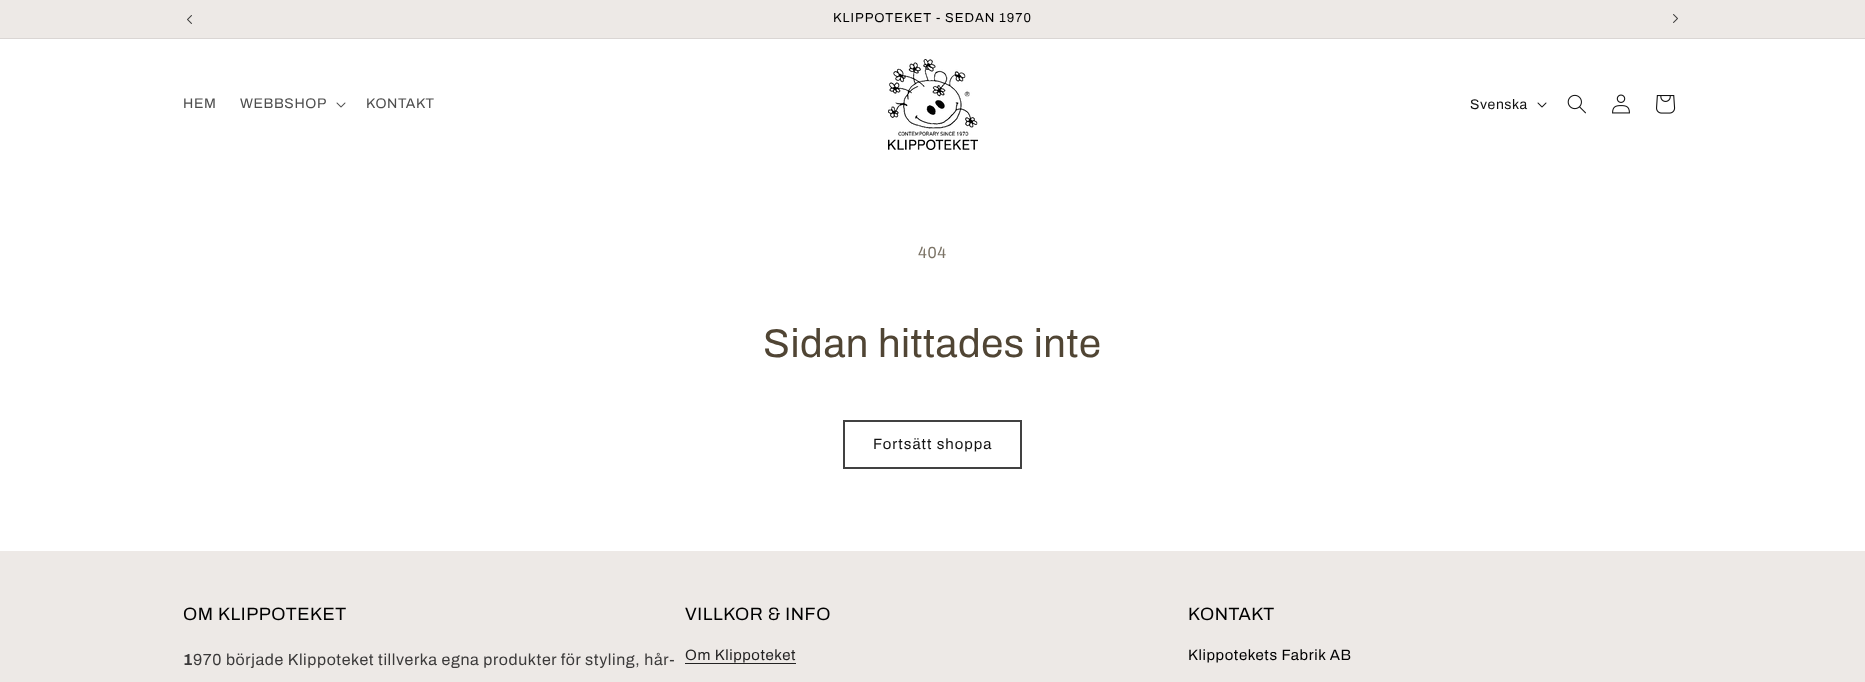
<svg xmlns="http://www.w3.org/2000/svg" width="1865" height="682">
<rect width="100%" height="100%" fill="#fff"/>
<rect width="1865" height="38" fill="#ede9e6"/>
<rect y="38" width="1865" height="1" fill="#dad6d4"/>
<image x="187" y="15" width="5" height="9" href="media/1.png"/>
<text x="833" y="22" style="font-family:Archivo;font-size:13px;letter-spacing:1px;fill:#000">KLIPPOTEKET - SEDAN 1970</text>
<image x="1673" y="14" width="5" height="9" href="media/2.png"/>
<text x="183" y="108" style="font-family:Archivo;font-size:14px;letter-spacing:0.6px;fill:#4d4d4d">HEM</text>
<text x="240" y="108" style="font-family:Archivo;font-size:14px;letter-spacing:0.6px;fill:#4d4d4d">WEBBSHOP</text>
<image x="336" y="102" width="10" height="6" href="media/3.png"/>
<text x="366" y="108" style="font-family:Archivo;font-size:14px;letter-spacing:0.6px;fill:#4d4d4d">KONTAKT</text>
<image x="888" y="59" width="90" height="91" href="media/4.png"/>
<text x="1470" y="109" style="font-family:Archivo;font-size:14px;letter-spacing:0.6px;fill:#121212">Svenska</text>
<image x="1537" y="102" width="10" height="6" href="media/5.png"/>
<image x="1567" y="94" width="19" height="20" href="media/6.png"/>
<image x="1612" y="94" width="18" height="20" href="media/7.png"/>
<image x="1656" y="95" width="20" height="19" href="media/8.png"/>
<text x="918" y="258" style="font-family:Archivo;font-size:16px;letter-spacing:0.6px;fill:#7c7467">404</text>
<text x="763" y="357" style="font-family:Archivo;font-size:40px;letter-spacing:0.6px;fill:#504534">Sidan hittades inte</text>
<rect x="844" y="421" width="177" height="47" fill="none" stroke="#414141" stroke-width="2"/>
<text x="873" y="449" style="font-family:Archivo;font-size:15px;letter-spacing:1px;fill:#121212">Fortsätt shoppa</text>
<rect y="551" width="1865" height="131" fill="#ede9e6"/>
<text x="183" y="620" style="font-family:Archivo;font-size:18px;letter-spacing:0.6px;fill:#000">OM KLIPPOTEKET</text>
<text x="183" y="665" style="font-family:Archivo;font-size:16px;font-weight:bold;letter-spacing:0.6px;fill:#3b3a3a">1</text>
<text x="193" y="665" style="font-family:Archivo;font-size:16px;letter-spacing:0.6px;fill:#3b3a3a">970 började Klippoteket tillverka egna produkter för styling, hår-</text>
<text x="685" y="620" style="font-family:Archivo;font-size:18px;letter-spacing:0.6px;fill:#000">VILLKOR &amp; INFO</text>
<text x="685" y="660" style="font-family:Archivo;font-size:15px;letter-spacing:0.6px;fill:#242323">Om Klippoteket</text>
<rect x="685" y="663" width="111" height="1" fill="#242323"/>
<text x="1188" y="620" style="font-family:Archivo;font-size:18px;letter-spacing:0.6px;fill:#000">KONTAKT</text>
<text x="1188" y="660" style="font-family:Archivo;font-size:15px;letter-spacing:0.6px;fill:#000">Klippotekets Fabrik AB</text>
</svg>
